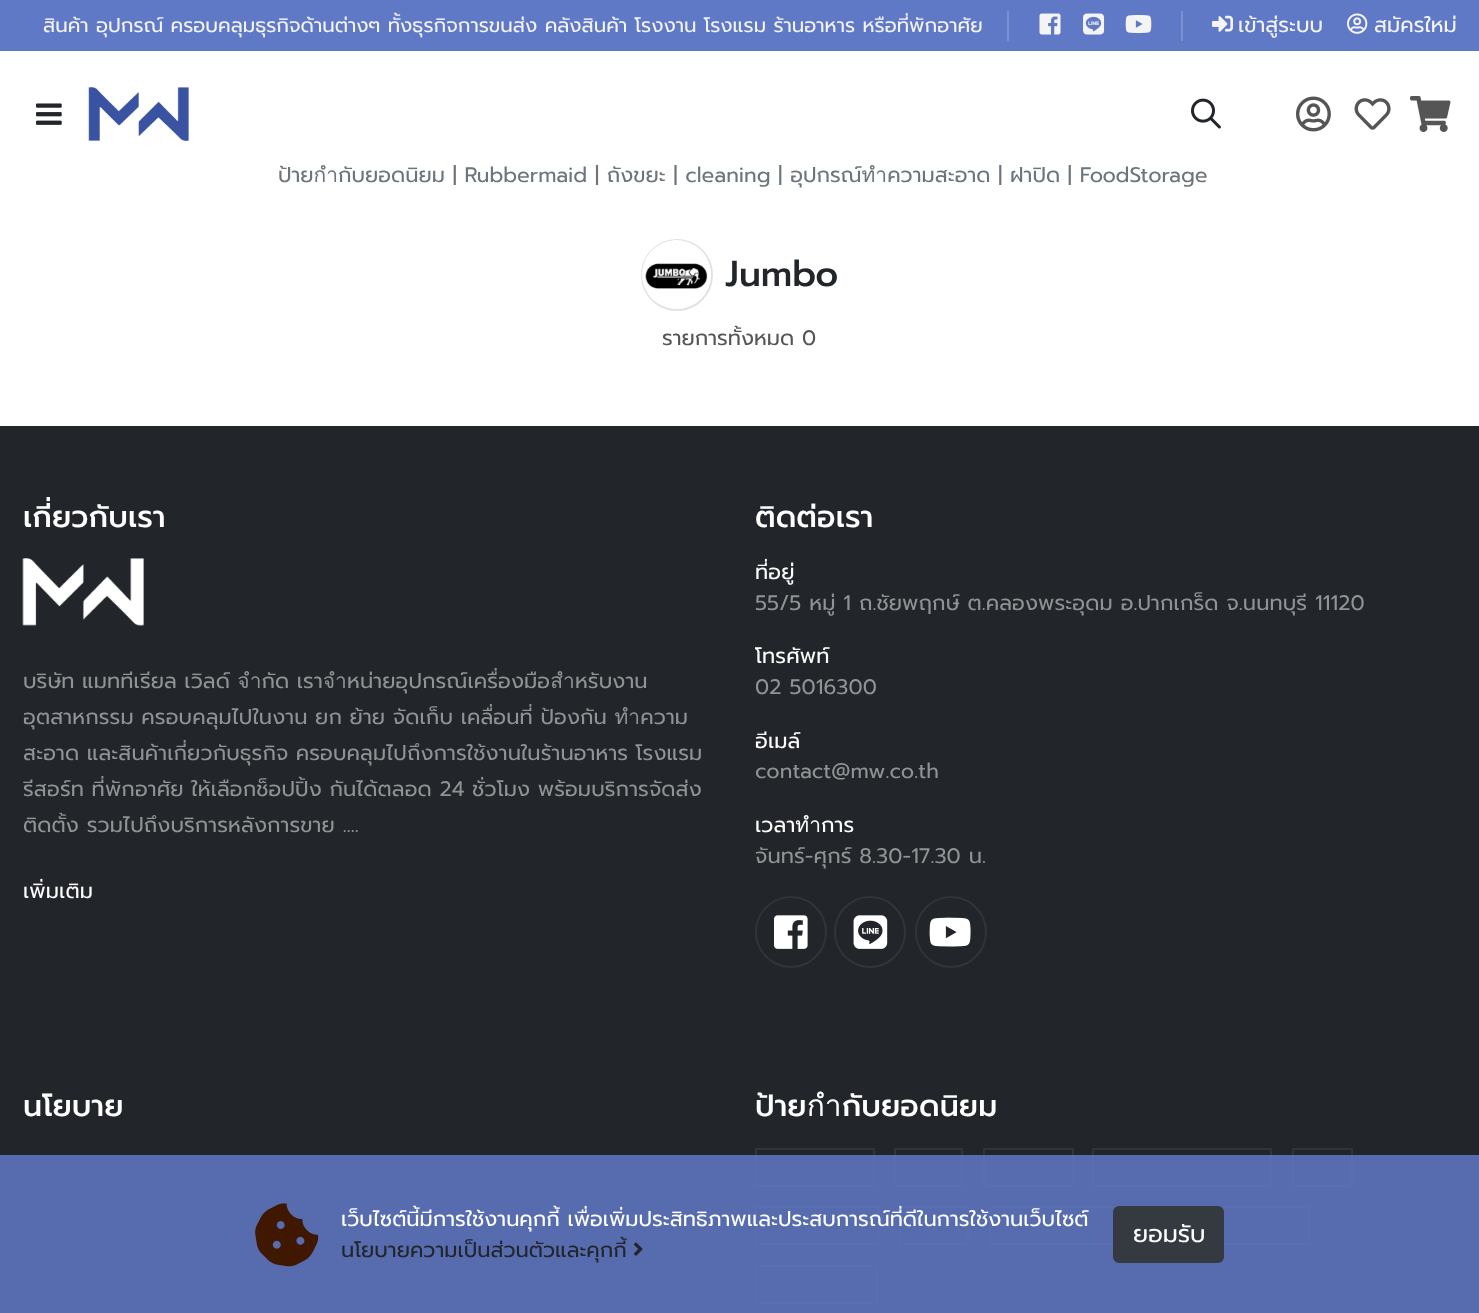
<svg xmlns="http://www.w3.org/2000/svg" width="1479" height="1313">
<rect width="100%" height="100%" fill="#fff"/>
<rect width="1479" height="51" fill="#6079c7"/>
<text x="43" y="32" style="font-family:Prompt;font-size:19.8px;fill:#f4f4f4">สินค้า อุปกรณ์ ครอบคลุมธุรกิจด้านต่างๆ ทั้งธุรกิจการขนส่ง คลังสินค้า โรงงาน โรงแรม ร้านอาหาร หรือที่พักอาศัย</text>
<rect x="1007" y="11" width="2" height="30" fill="#7d91d1"/>
<image x="1039" y="13" width="22" height="22" href="media/1.png"/>
<image x="1083" y="13" width="22" height="22" href="media/2.png"/>
<image x="1125" y="15" width="27" height="18" href="media/3.png"/>
<rect x="1181" y="11" width="2" height="30" fill="#7d91d1"/>
<image x="1212" y="15" width="21" height="17" href="media/4.png"/>
<text x="1238" y="32" style="font-family:Prompt;font-size:21px;fill:#f4f4f4">เข้าสู่ระบบ</text>
<image x="1347" y="13" width="21" height="21" href="media/5.png"/>
<text x="1374" y="32" style="font-family:Prompt;font-size:21px;fill:#f4f4f4">สมัครใหม่</text>
<image x="36" y="103" width="26" height="22" href="media/6.png"/>
<image x="88" y="87" width="101" height="54" href="media/7.png"/>
<image x="1191" y="98" width="30" height="31" href="media/8.png"/>
<image x="1296" y="96" width="35" height="36" href="media/9.png"/>
<image x="1354" y="98" width="37" height="32" href="media/10.png"/>
<image x="1410" y="96" width="41" height="36" href="media/11.png"/>
<text x="278" y="182" style="font-family:Prompt;font-size:21px;fill:#6c757d">ป้ายกำกับยอดนิยม | Rubbermaid | ถังขยะ | cleaning | อุปกรณ์ทำความสะอาด | ฝาปิด | FoodStorage</text>
<circle cx="677" cy="275" r="35" fill="none" stroke="#dee2e6" stroke-width="2"/>
<image x="642" y="240" width="69" height="69" href="media/12.png"/>
<text x="725" y="286" style="font-family:Prompt;font-size:36px;font-weight:500;fill:#222529">Jumbo</text>
<text x="662" y="345" style="font-family:Prompt;font-size:21px;fill:#555">รายการทั้งหมด 0</text>
<rect y="426" width="1479" height="887" fill="#222529"/>
<text x="23" y="527" style="font-family:Prompt;font-size:30px;font-weight:500;letter-spacing:0.1px;fill:#fff">เกี่ยวกับเรา</text>
<image x="22" y="558" width="122" height="68" href="media/13.png"/>
<text x="23" y="688" word-spacing="-0.5" style="font-family:Prompt;font-size:21px;letter-spacing:0.1px;fill:#919294">บริษัท แมททีเรียล เวิลด์ จำกัด เราจำหน่ายอุปกรณ์เครื่องมือสำหรับงาน</text>
<text x="23" y="724" word-spacing="-0.25" style="font-family:Prompt;font-size:21px;letter-spacing:0.1px;fill:#919294">อุตสาหกรรม ครอบคลุมไปในงาน ยก ย้าย จัดเก็บ เคลื่อนที่ ป้องกัน ทำความ</text>
<text x="23" y="760" word-spacing="-0.5" style="font-family:Prompt;font-size:21px;letter-spacing:0.1px;fill:#919294">สะอาด และสินค้าเกี่ยวกับธุรกิจ ครอบคลุมไปถึงการใช้งานในร้านอาหาร โรงแรม</text>
<text x="23" y="796" word-spacing="-0.25" style="font-family:Prompt;font-size:21px;letter-spacing:0.1px;fill:#919294">รีสอร์ท ที่พักอาศัย ให้เลือกช็อปปิ้ง กันได้ตลอด 24 ชั่วโมง พร้อมบริการจัดส่ง</text>
<text x="23" y="832" style="font-family:Prompt;font-size:21px;letter-spacing:0.1px;fill:#919294">ติดตั้ง รวมไปถึงบริการหลังการขาย ....</text>
<text x="23" y="898" style="font-family:Prompt;font-size:21px;letter-spacing:0.1px;fill:#fff">เพิ่มเติม</text>
<text x="755" y="527" style="font-family:Prompt;font-size:30px;font-weight:500;letter-spacing:0.1px;fill:#fff">ติดต่อเรา</text>
<text x="755" y="579" style="font-family:Prompt;font-size:21px;letter-spacing:0.1px;fill:#fff">ที่อยู่</text>
<text x="755" y="610" style="font-family:Prompt;font-size:21px;letter-spacing:0.1px;fill:#919294">55/5 หมู่ 1 ถ.ชัยพฤกษ์ ต.คลองพระอุดม อ.ปากเกร็ด จ.นนทบุรี 11120</text>
<text x="755" y="663" style="font-family:Prompt;font-size:21px;letter-spacing:0.1px;fill:#fff">โทรศัพท์</text>
<text x="755" y="694" style="font-family:Prompt;font-size:21px;letter-spacing:0.1px;fill:#919294">02 5016300</text>
<text x="755" y="748" style="font-family:Prompt;font-size:21px;letter-spacing:0.1px;fill:#fff">อีเมล์</text>
<text x="755" y="778" style="font-family:Prompt;font-size:21px;letter-spacing:0.1px;fill:#919294">contact@mw.co.th</text>
<text x="755" y="832" style="font-family:Prompt;font-size:21px;letter-spacing:0.1px;fill:#fff">เวลาทำการ</text>
<text x="755" y="863" style="font-family:Prompt;font-size:21px;letter-spacing:0.1px;fill:#919294">จันทร์-ศุกร์ 8.30-17.30 น.</text>
<circle cx="791" cy="932" r="35" fill="none" stroke="#313438" stroke-width="2"/>
<image x="774" y="915" width="34" height="34" href="media/14.png"/>
<circle cx="870" cy="932" r="35" fill="none" stroke="#313438" stroke-width="2"/>
<image x="853" y="915" width="35" height="34" href="media/15.png"/>
<circle cx="951" cy="932" r="35" fill="none" stroke="#313438" stroke-width="2"/>
<image x="929" y="917" width="42" height="30" href="media/16.png"/>
<text x="23" y="1116" style="font-family:Prompt;font-size:30px;font-weight:500;letter-spacing:0.1px;fill:#fff">นโยบาย</text>
<text x="755" y="1116" style="font-family:Prompt;font-size:30px;font-weight:500;letter-spacing:0.1px;fill:#fff">ป้ายกำกับยอดนิยม</text>
<rect x="756" y="1149" width="118" height="37" fill="none" stroke="#313438" stroke-width="2"/>
<rect x="895" y="1149" width="67" height="37" fill="none" stroke="#313438" stroke-width="2"/>
<rect x="984" y="1149" width="89" height="37" fill="none" stroke="#313438" stroke-width="2"/>
<rect x="1093" y="1149" width="178" height="37" fill="none" stroke="#313438" stroke-width="2"/>
<rect x="1293" y="1149" width="59" height="37" fill="none" stroke="#313438" stroke-width="2"/>
<rect x="756" y="1207" width="122" height="37" fill="none" stroke="#313438" stroke-width="2"/>
<rect x="900" y="1207" width="68" height="37" fill="none" stroke="#313438" stroke-width="2"/>
<rect x="990" y="1207" width="167" height="37" fill="none" stroke="#313438" stroke-width="2"/>
<rect x="1179" y="1207" width="130" height="37" fill="none" stroke="#313438" stroke-width="2"/>
<rect x="756" y="1266" width="121" height="37" fill="none" stroke="#313438" stroke-width="2"/>
<rect y="1155" width="1479" height="158" fill="#6079c7d9"/>
<image x="255" y="1203" width="64" height="64" href="media/17.png"/>
<text x="341" y="1226" style="font-family:Prompt;font-size:21px;fill:#fff">เว็บไซต์นี้มีการใช้งานคุกกี้ เพื่อเพิ่มประสิทธิภาพและประสบการณ์ที่ดีในการใช้งานเว็บไซต์</text>
<text x="341" y="1257" style="font-family:Prompt;font-size:21px;fill:#222529">นโยบายความเป็นส่วนตัวและคุกกี้</text>
<image x="634" y="1242" width="9" height="14" href="media/18.png"/>
<rect x="1114" y="1207" width="109" height="55" rx="5" fill="#343a40" stroke="#343a40" stroke-width="2"/>
<text x="1133" y="1242" style="font-family:Prompt;font-size:24px;fill:#fff">ยอมรับ</text>
</svg>
